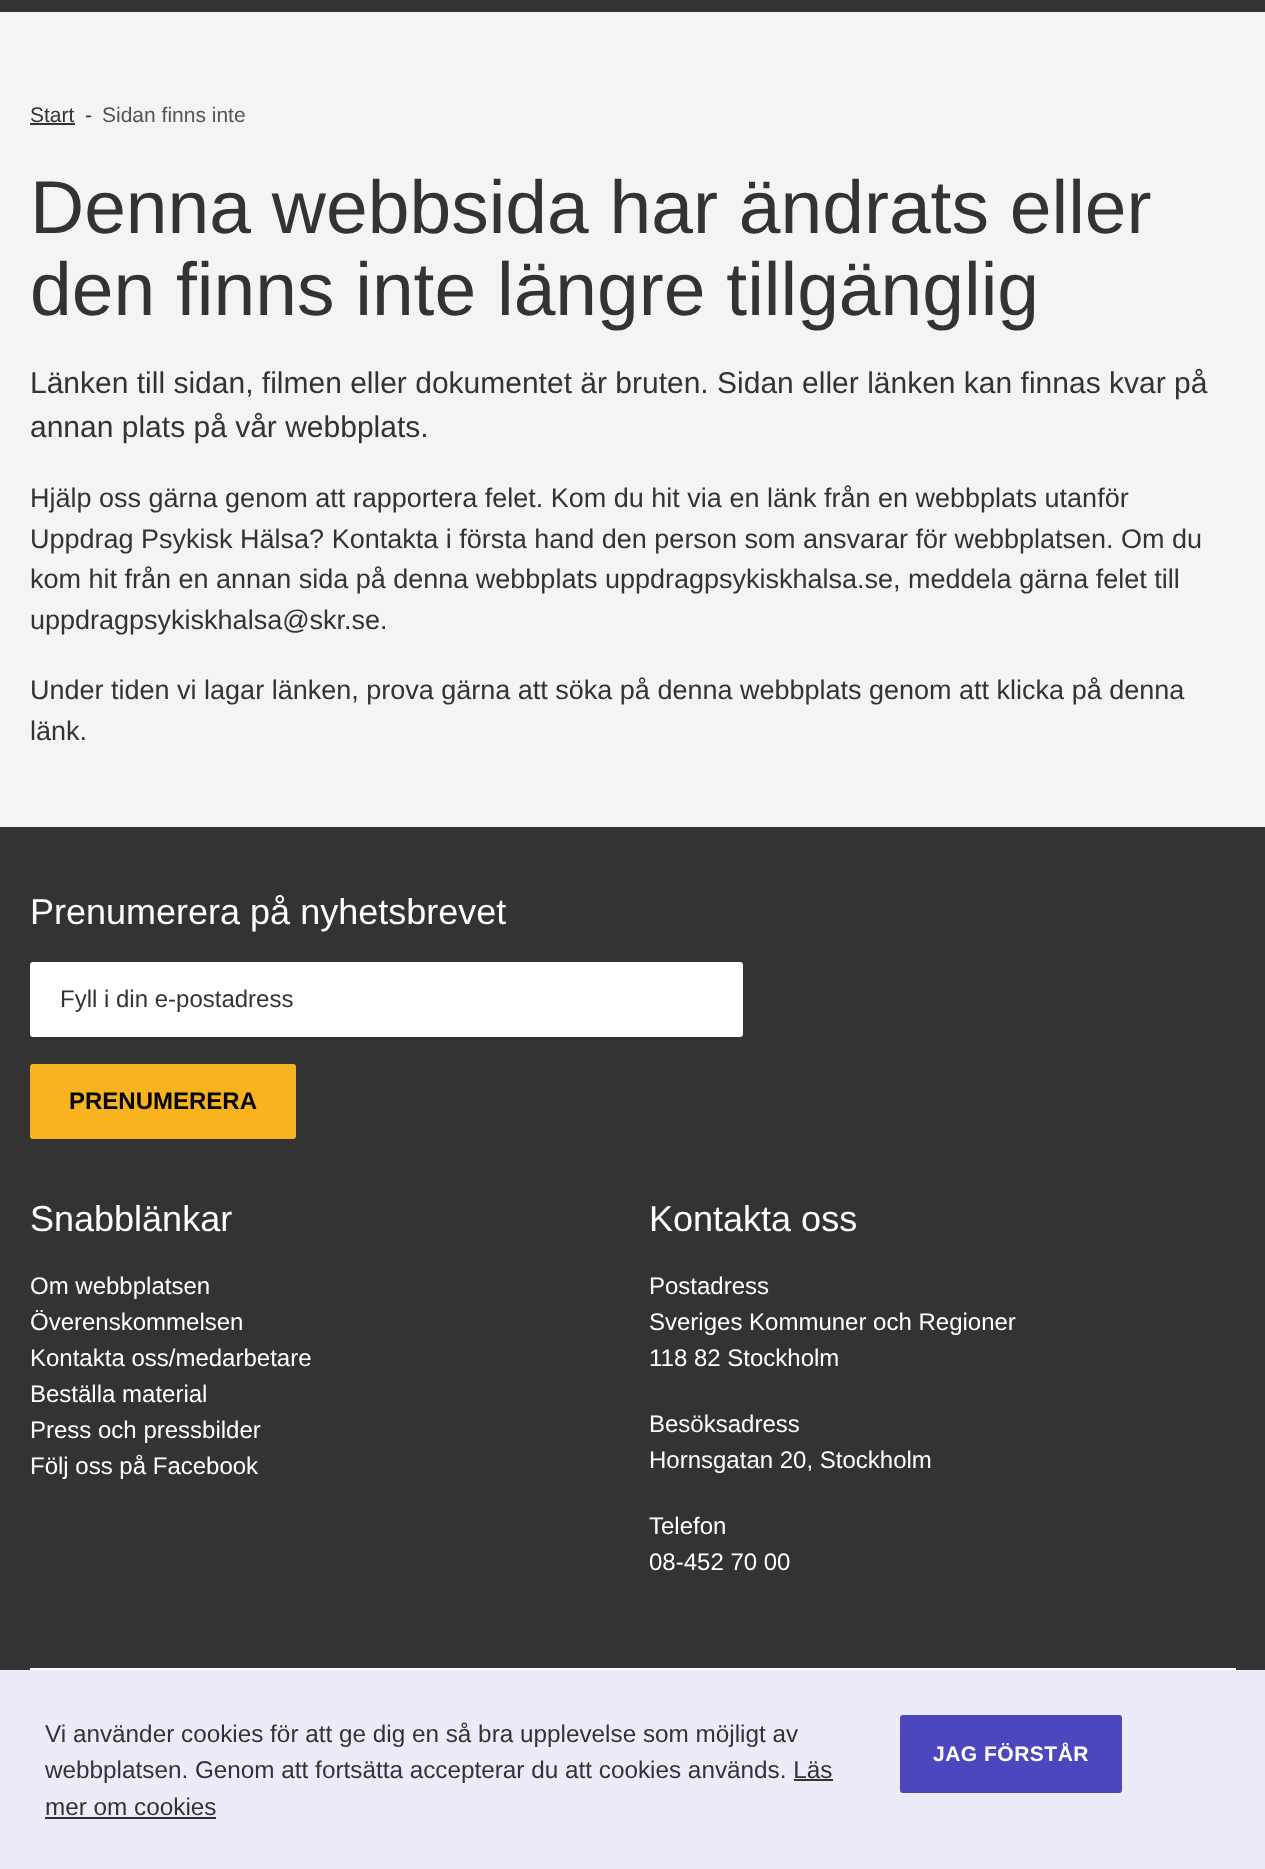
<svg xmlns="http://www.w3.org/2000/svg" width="1265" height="1869">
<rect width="100%" height="100%" fill="#f4f4f4"/>
<rect width="1265" height="12" fill="#333"/>
<text x="30" y="122" style="font-family:Liberation Sans;font-size:21px;fill:#333">Start</text>
<rect x="30" y="123" width="45" height="2" fill="#333"/>
<text x="85" y="122" style="font-family:Liberation Sans;font-size:21px;fill:#333">-</text>
<text x="102" y="122" style="font-family:Liberation Sans;font-size:21px;fill:#545454">Sidan finns inte</text>
<text x="30" y="233" style="font-family:Liberation Sans;font-size:75px;fill:#333">Denna webbsida har ändrats eller</text>
<text x="30" y="315" style="font-family:Liberation Sans;font-size:75px;fill:#333">den finns inte längre tillgänglig</text>
<text x="30" y="393" style="font-family:Liberation Sans;font-size:30px;fill:#333">Länken till sidan, filmen eller dokumentet är bruten. Sidan eller länken kan finnas kvar på</text>
<text x="30" y="437" style="font-family:Liberation Sans;font-size:30px;fill:#333">annan plats på vår webbplats.</text>
<text x="30" y="507" style="font-family:Liberation Sans;font-size:27px;fill:#333">Hjälp oss gärna genom att rapportera felet. Kom du hit via en länk från en webbplats utanför</text>
<text x="30" y="548" style="font-family:Liberation Sans;font-size:27px;fill:#333">Uppdrag Psykisk Hälsa? Kontakta i första hand den person som ansvarar för webbplatsen. Om du</text>
<text x="30" y="588" style="font-family:Liberation Sans;font-size:27px;fill:#333">kom hit från en annan sida på denna webbplats uppdragpsykiskhalsa.se, meddela gärna felet till</text>
<text x="30" y="629" style="font-family:Liberation Sans;font-size:27px;fill:#333">uppdragpsykiskhalsa@skr.se.</text>
<text x="30" y="699" style="font-family:Liberation Sans;font-size:27px;fill:#333">Under tiden vi lagar länken, prova gärna att söka på denna webbplats genom att klicka på denna</text>
<text x="30" y="740" style="font-family:Liberation Sans;font-size:27px;fill:#333">länk.</text>
<rect y="827" width="1265" height="843" fill="#333"/>
<text x="30" y="924" style="font-family:Liberation Sans;font-size:36px;fill:#fff">Prenumerera på nyhetsbrevet</text>
<rect x="30" y="962" width="713" height="75" rx="3" fill="#fff"/>
<text x="60" y="1007" style="font-family:Liberation Sans;font-size:24px;fill:#333">Fyll i din e-postadress</text>
<rect x="30" y="1064" width="266" height="75" rx="3" fill="#f8b31f"/>
<text x="69" y="1109" style="font-family:Liberation Sans;font-size:24px;font-weight:bold;fill:#000">PRENUMERERA</text>
<text x="30" y="1231" style="font-family:Liberation Sans;font-size:36px;fill:#fff">Snabblänkar</text>
<text x="30" y="1294" style="font-family:Liberation Sans;font-size:24px;fill:#fff">Om webbplatsen</text>
<text x="30" y="1330" style="font-family:Liberation Sans;font-size:24px;fill:#fff">Överenskommelsen</text>
<text x="30" y="1366" style="font-family:Liberation Sans;font-size:24px;fill:#fff">Kontakta oss/medarbetare</text>
<text x="30" y="1402" style="font-family:Liberation Sans;font-size:24px;fill:#fff">Beställa material</text>
<text x="30" y="1438" style="font-family:Liberation Sans;font-size:24px;fill:#fff">Press och pressbilder</text>
<text x="30" y="1474" style="font-family:Liberation Sans;font-size:24px;fill:#fff">Följ oss på Facebook</text>
<text x="649" y="1231" style="font-family:Liberation Sans;font-size:36px;fill:#fff">Kontakta oss</text>
<text x="649" y="1294" style="font-family:Liberation Sans;font-size:24px;fill:#fff">Postadress</text>
<text x="649" y="1330" style="font-family:Liberation Sans;font-size:24px;fill:#fff">Sveriges Kommuner och Regioner</text>
<text x="649" y="1366" style="font-family:Liberation Sans;font-size:24px;fill:#fff">118 82 Stockholm</text>
<text x="649" y="1432" style="font-family:Liberation Sans;font-size:24px;fill:#fff">Besöksadress</text>
<text x="649" y="1468" style="font-family:Liberation Sans;font-size:24px;fill:#fff">Hornsgatan 20, Stockholm</text>
<text x="649" y="1534" style="font-family:Liberation Sans;font-size:24px;fill:#fff">Telefon</text>
<text x="649" y="1570" style="font-family:Liberation Sans;font-size:24px;fill:#fff">08-452 70 00</text>
<rect x="30" y="1668" width="1206" height="2" fill="#fff"/>
<rect y="1670" width="1265" height="199" fill="#ececf8"/>
<text x="45" y="1742" style="font-family:Liberation Sans;font-size:24.3px;fill:#333">Vi använder cookies för att ge dig en så bra upplevelse som möjligt av</text>
<text x="45" y="1778" style="font-family:Liberation Sans;font-size:24.3px;fill:#333">webbplatsen. Genom att fortsätta accepterar du att cookies används. Läs</text>
<text x="45" y="1815" style="font-family:Liberation Sans;font-size:24.3px;fill:#333">mer om cookies</text>
<rect x="794" y="1779" width="39" height="2" fill="#333"/>
<rect x="45" y="1817" width="171" height="2" fill="#333"/>
<rect x="900" y="1715" width="222" height="78" rx="3" fill="#4c47bf"/>
<text x="933" y="1761" style="font-family:Liberation Sans;font-size:21px;font-weight:bold;letter-spacing:0.5px;fill:#fff">JAG FÖRSTÅR</text>
</svg>
